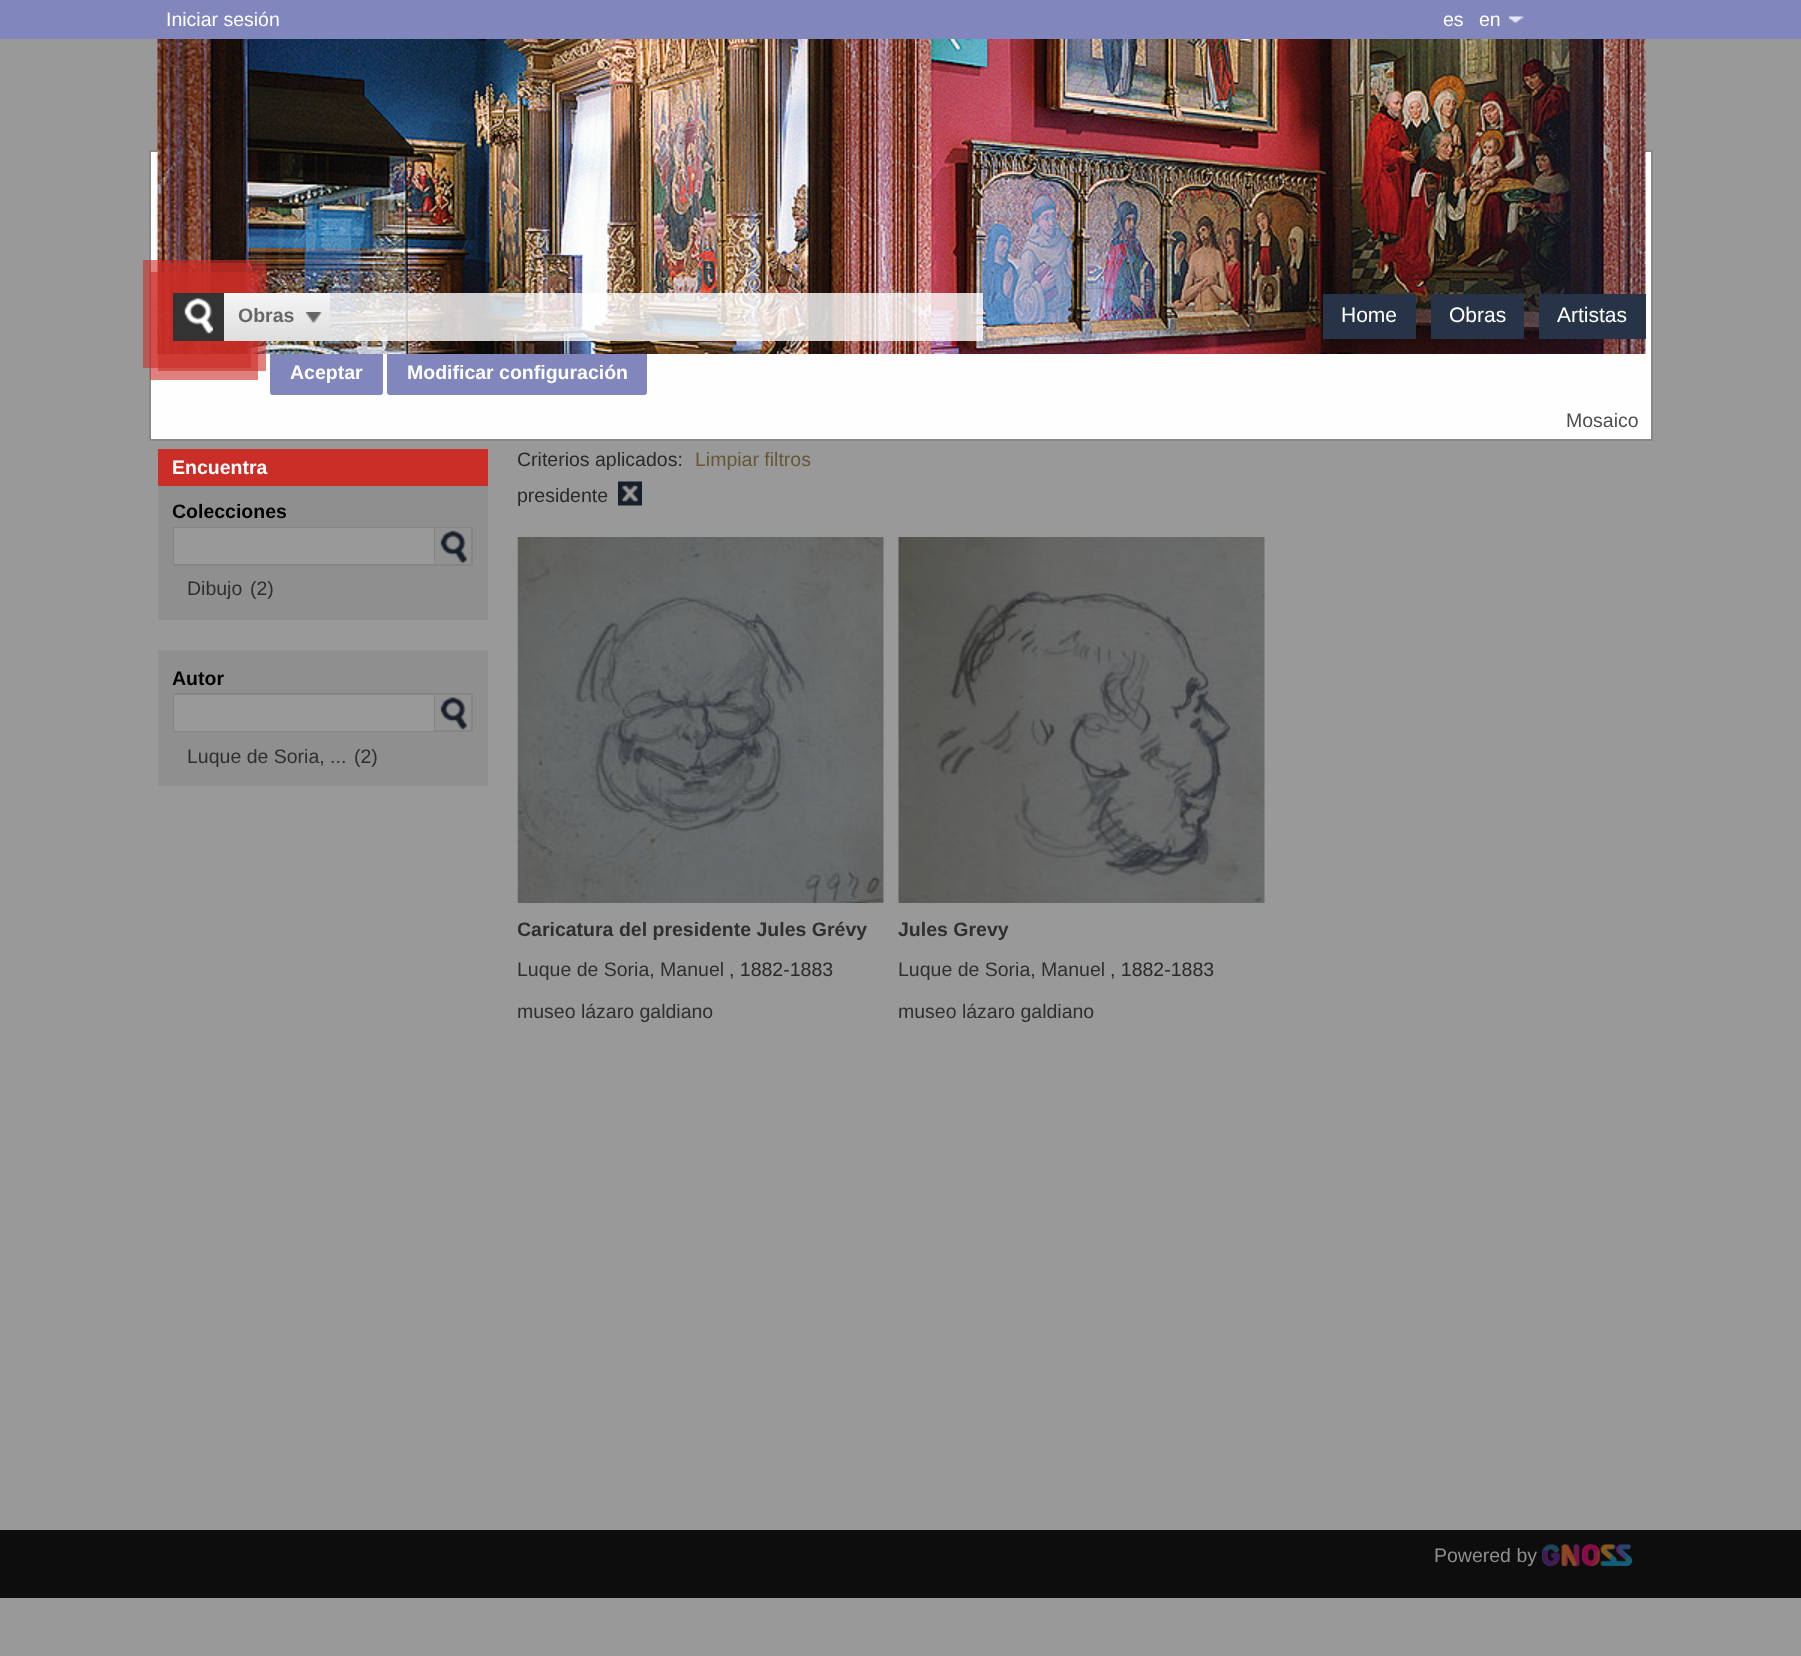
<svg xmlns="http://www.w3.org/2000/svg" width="1801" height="1656">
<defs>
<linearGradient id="g1" gradientUnits="userSpaceOnUse" x1="277" y1="293" x2="277" y2="341"><stop offset="0" stop-color="#f5f5f5"/><stop offset="1" stop-color="#dedede"/></linearGradient>
<clipPath id="clip1"><rect x="518" y="449" width="1128" height="733"/></clipPath>
</defs>
<rect width="100%" height="100%" fill="#999"/>
<rect width="1801" height="39" fill="#8186bd"/>
<text x="166" y="26" style="font-family:Liberation Sans;font-size:19.5px;fill:#fff">Iniciar sesión</text>
<text x="1443" y="26" style="font-family:Liberation Sans;font-size:19.5px;fill:#fff">es</text>
<text x="1479" y="26" style="font-family:Liberation Sans;font-size:19.5px;fill:#fff">en</text>
<image x="1509" y="16" width="15" height="7" href="media/1.png"/>
<rect x="150" y="151" width="1502" height="289" fill="#fefefe" stroke="#888" stroke-width="2"/>
<rect x="271" y="351" width="111" height="43" rx="2" fill="#8186bd" stroke="#8186bd" stroke-width="2"/>
<rect x="388" y="351" width="258" height="43" rx="2" fill="#8186bd" stroke="#8186bd" stroke-width="2"/>
<image x="157" y="39" width="1489" height="315" href="media/2.png"/>
<rect x="158" y="263" width="108" height="108" fill="#cb2d2799"/>
<rect x="150" y="272" width="108" height="108" fill="#cb2d2799"/>
<rect x="143" y="260" width="108" height="108" fill="#cb2d2799"/>
<rect x="173" y="293" width="51" height="48" fill="#333"/>
<image x="184" y="298" width="29" height="36" href="media/3.png"/>
<rect x="224" y="293" width="106" height="48" fill="url(#g1)"/>
<text x="238" y="322" style="font-family:Liberation Sans;font-size:19.5px;font-weight:bold;fill:#666">Obras</text>
<image x="306" y="312" width="16" height="11" href="media/4.png"/>
<rect x="330" y="293" width="653" height="48" fill="#ffffffcc"/>
<rect x="1323" y="294" width="93" height="45" fill="#273347"/>
<text x="1341" y="322" style="font-family:Liberation Sans;font-size:21px;fill:#fff">Home</text>
<rect x="1431" y="294" width="93" height="45" fill="#273347"/>
<text x="1449" y="322" style="font-family:Liberation Sans;font-size:21px;fill:#fff">Obras</text>
<rect x="1539" y="294" width="107" height="45" fill="#273347"/>
<text x="1557" y="322" style="font-family:Liberation Sans;font-size:21px;fill:#fff">Artistas</text>
<text x="290" y="379" style="font-family:Liberation Sans;font-size:19.5px;font-weight:bold;fill:#fff">Aceptar</text>
<text x="407" y="379" style="font-family:Liberation Sans;font-size:19.5px;font-weight:bold;fill:#fff">Modificar configuración</text>
<text x="1566" y="427" style="font-family:Liberation Sans;font-size:19.5px;fill:#4e4e50">Mosaico</text>
<rect x="158" y="449" width="330" height="37" fill="#cb2d27"/>
<text x="172" y="474" style="font-family:Liberation Sans;font-size:19.5px;font-weight:bold;fill:#fff">Encuentra</text>
<rect x="158" y="486" width="330" height="134" fill="#8f8f8f"/>
<text x="172" y="518" style="font-family:Liberation Sans;font-size:19.5px;font-weight:bold;fill:#000">Colecciones</text>
<rect x="173" y="527" width="300" height="39" fill="#858585"/>
<rect x="174" y="528" width="260" height="36" fill="#999"/>
<image x="435" y="528" width="36" height="36" href="media/5.png"/>
<text x="187" y="595" style="font-family:Liberation Sans;font-size:19.5px;fill:#2f2f30">Dibujo</text>
<text x="250" y="595" style="font-family:Liberation Sans;font-size:19.5px;fill:#2f2f30">(2)</text>
<rect x="158" y="650" width="330" height="136" fill="#8f8f8f"/>
<text x="172" y="685" style="font-family:Liberation Sans;font-size:19.5px;font-weight:bold;fill:#000">Autor</text>
<rect x="173" y="693" width="300" height="39" fill="#858585"/>
<rect x="174" y="695" width="260" height="36" fill="#999"/>
<image x="435" y="694" width="36" height="37" href="media/6.png"/>
<text x="187" y="763" style="font-family:Liberation Sans;font-size:19.5px;fill:#2f2f30">Luque de Soria, ...</text>
<text x="354" y="763" style="font-family:Liberation Sans;font-size:19.5px;fill:#2f2f30">(2)</text>
<g clip-path="url(#clip1)">
<text x="517" y="466" style="font-family:Liberation Sans;font-size:19.5px;fill:#292929">Criterios aplicados:</text>
</g>
<text x="695" y="466" style="font-family:Liberation Sans;font-size:19.5px;fill:#655737">Limpiar filtros</text>
<text x="517" y="502" style="font-family:Liberation Sans;font-size:19.5px;fill:#292929">presidente</text>
<image x="618" y="481" width="24" height="25" href="media/7.png"/>
<image x="517" y="537" width="367" height="366" href="media/8.png"/>
<g clip-path="url(#clip1)">
<text x="517" y="936" style="font-family:Liberation Sans;font-size:19.5px;font-weight:bold;fill:#2f2f30">Caricatura del presidente Jules Grévy</text>
</g>
<text x="517" y="976" style="font-family:Liberation Sans;font-size:19.5px;fill:#2f2f30">Luque de Soria, Manuel</text>
<text x="729" y="976" style="font-family:Liberation Sans;font-size:19.5px;fill:#292929">, 1882-1883</text>
<text x="517" y="1018" style="font-family:Liberation Sans;font-size:19.5px;fill:#2f2f30">museo lázaro galdiano</text>
<image x="898" y="537" width="367" height="366" href="media/9.png"/>
<text x="898" y="936" style="font-family:Liberation Sans;font-size:19.5px;font-weight:bold;fill:#2f2f30">Jules Grevy</text>
<text x="898" y="976" style="font-family:Liberation Sans;font-size:19.5px;fill:#2f2f30">Luque de Soria, Manuel</text>
<text x="1110" y="976" style="font-family:Liberation Sans;font-size:19.5px;fill:#292929">, 1882-1883</text>
<text x="898" y="1018" style="font-family:Liberation Sans;font-size:19.5px;fill:#2f2f30">museo lázaro galdiano</text>
<rect y="1530" width="1801" height="68" fill="#0e0d0d"/>
<text x="1434" y="1562" style="font-family:Liberation Sans;font-size:19.5px;fill:#8f8f8f">Powered by</text>
<image x="1542" y="1544" width="91" height="23" href="media/10.png"/>
</svg>
